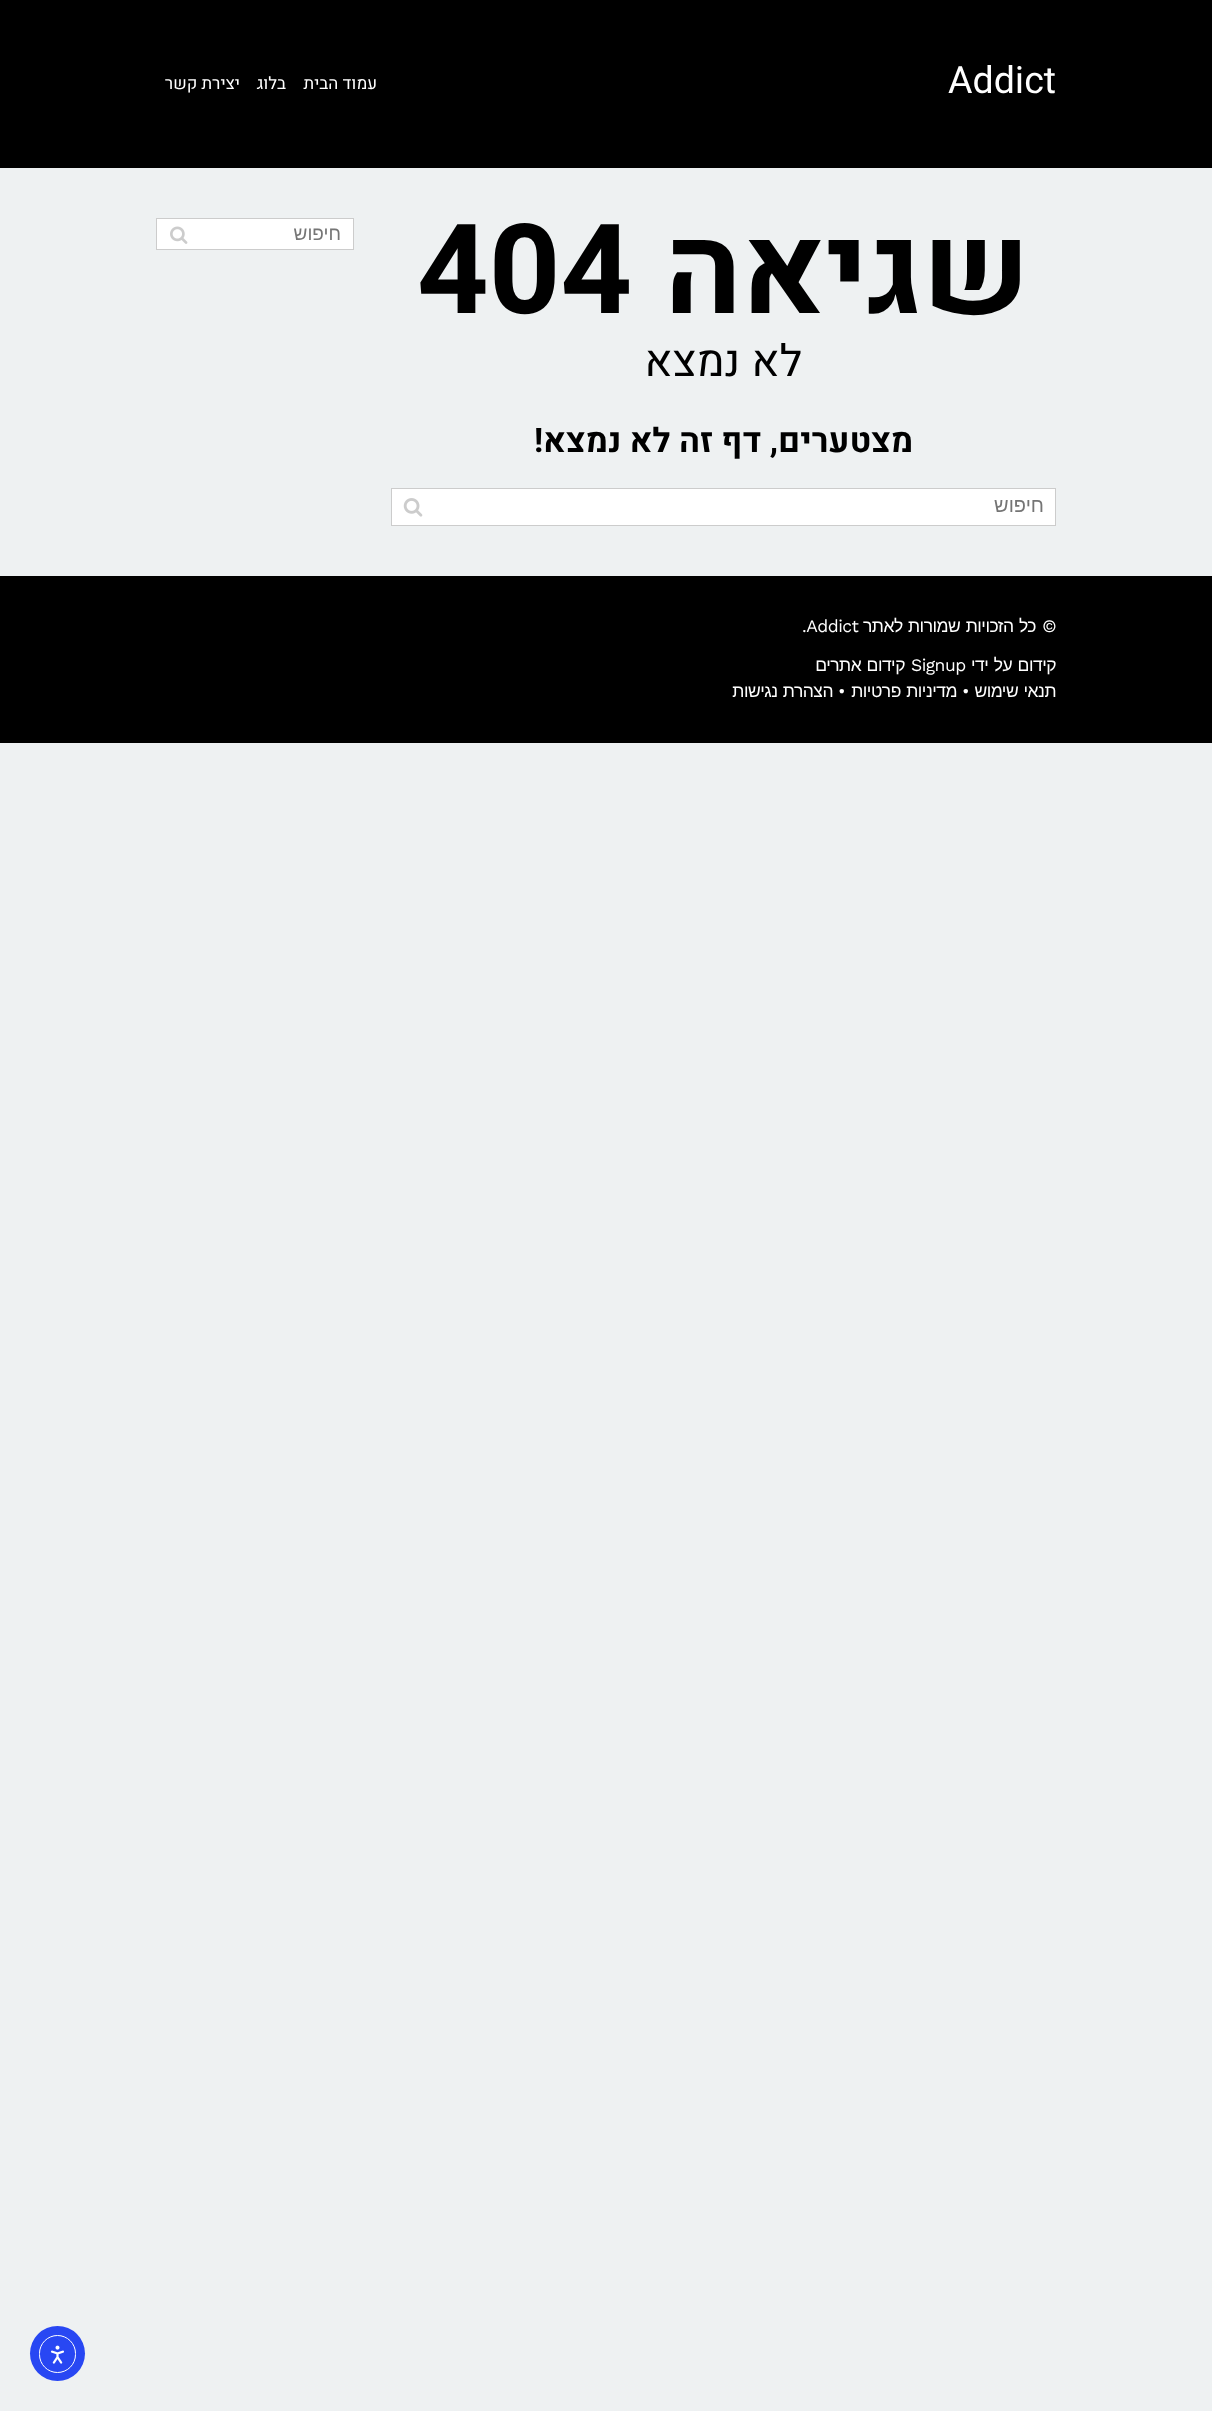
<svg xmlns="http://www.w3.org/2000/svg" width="1212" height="2411">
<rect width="100%" height="100%" fill="#eef1f2"/>
<rect width="1212" height="168" fill="#000"/>
<text x="948" y="93" style="font-family:Heebo;font-size:37.5px;fill:#fff">Addict</text>
<text x="377" y="89" style="font-family:Heebo;font-size:17px;direction:rtl;fill:#fff">עמוד הבית</text>
<text x="286" y="89" style="font-family:Heebo;font-size:17px;direction:rtl;fill:#fff">בלוג</text>
<text x="240" y="89" style="font-family:Heebo;font-size:17px;direction:rtl;fill:#fff">יצירת קשר</text>
<text x="1030" y="313" style="font-family:Heebo;font-size:125px;font-weight:bold;direction:rtl;fill:#000">שגיאה</text>
<text x="417" y="313" style="font-family:Heebo;font-size:125px;font-weight:bold;fill:#000">404</text>
<text x="802" y="376" style="font-family:Heebo;font-size:44px;direction:rtl;fill:#000">לא נמצא</text>
<text x="913" y="452" style="font-family:Heebo;font-size:33.75px;font-weight:bold;direction:rtl;fill:#000">מצטערים, דף זה לא נמצא!</text>
<rect x="391.5" y="488.5" width="664" height="37" fill="#fff" stroke="#ccc"/>
<text x="1044" y="512" style="font-family:Liberation Sans;font-size:20px;direction:rtl;fill:#757575">חיפוש</text>
<image x="403" y="498" width="20" height="19" href="media/1.png"/>
<rect x="156.5" y="218.5" width="197" height="31" fill="#fff" stroke="#ccc"/>
<text x="341" y="240" style="font-family:Liberation Sans;font-size:19px;direction:rtl;fill:#757575">חיפוש</text>
<image x="170" y="226" width="18" height="18" href="media/2.png"/>
<rect y="576" width="1212" height="167" fill="#000"/>
<text x="1056" y="632" style="font-family:Work Sans;font-size:17.5px;letter-spacing:-0.5px;direction:rtl;fill:#fff">©</text>
<text x="1036" y="632" word-spacing="1" style="font-family:Liberation Sans;font-size:17.5px;letter-spacing:-0.5px;direction:rtl;fill:#fff">כל הזכויות שמורות לאתר</text>
<text x="802" y="632" style="font-family:Work Sans;font-size:17.5px;letter-spacing:-0.5px;fill:#fff">.Addict</text>
<text x="1056" y="671" word-spacing="1" style="font-family:Liberation Sans;font-size:17.5px;letter-spacing:-0.5px;direction:rtl;fill:#fff">קידום על ידי</text>
<text x="911" y="671" style="font-family:Work Sans;font-size:17.5px;letter-spacing:-0.5px;fill:#fff">Signup</text>
<text x="905" y="671" word-spacing="1" style="font-family:Liberation Sans;font-size:17.5px;letter-spacing:-0.5px;direction:rtl;fill:#fff">קידום אתרים</text>
<text x="1056" y="697" word-spacing="1" style="font-family:Liberation Sans;font-size:17.5px;letter-spacing:-0.5px;direction:rtl;fill:#fff">תנאי שימוש</text>
<text x="962" y="697" style="font-family:Work Sans;font-size:17.5px;letter-spacing:-0.5px;fill:#fff">•</text>
<text x="957" y="697" word-spacing="1" style="font-family:Liberation Sans;font-size:17.5px;letter-spacing:-0.5px;direction:rtl;fill:#fff">מדיניות פרטיות</text>
<text x="838" y="697" style="font-family:Work Sans;font-size:17.5px;letter-spacing:-0.5px;fill:#fff">•</text>
<text x="833" y="697" word-spacing="1" style="font-family:Liberation Sans;font-size:17.5px;letter-spacing:-0.5px;direction:rtl;fill:#fff">הצהרת נגישות</text>
<circle cx="57.5" cy="2353.5" r="27.5" fill="#2847f3"/>
<rect x="39.5" y="2335.5" width="36" height="37" rx="18" fill="none" stroke="#fff"/>
<image x="50" y="2345" width="14" height="19" href="media/3.png"/>
</svg>
